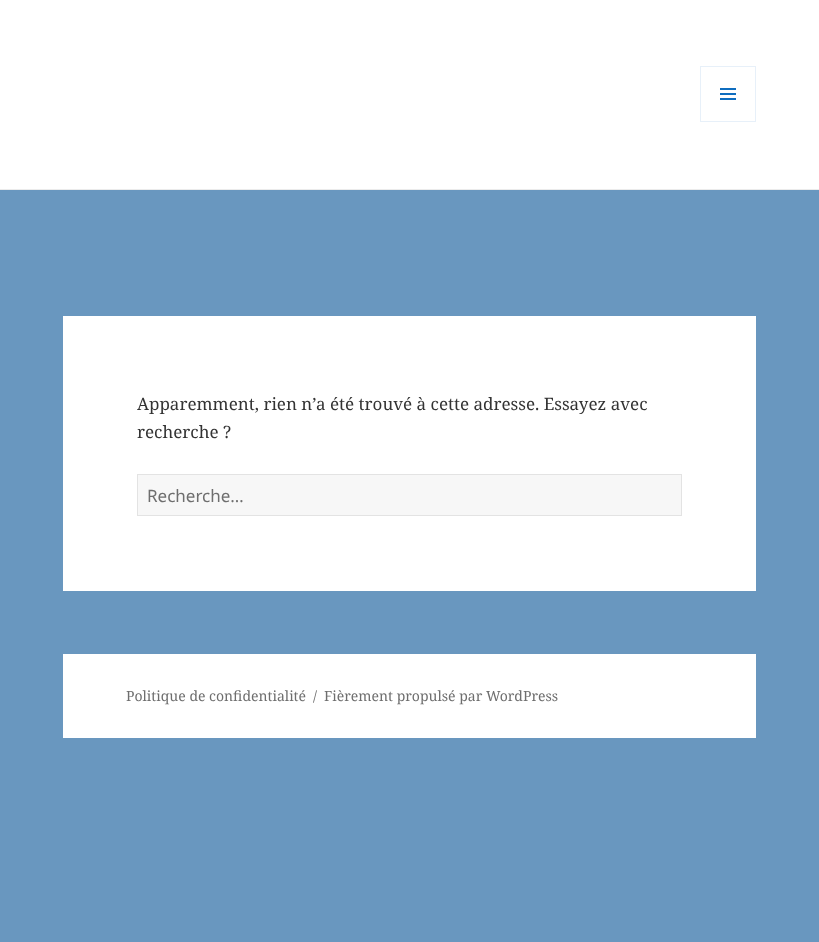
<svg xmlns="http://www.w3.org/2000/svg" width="819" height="942">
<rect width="100%" height="100%" fill="#6997bf"/>
<rect width="819" height="189" fill="#fff"/>
<rect y="189" width="819" height="1" fill="#ebebeb"/>
<rect x="700.5" y="66.5" width="55" height="55" fill="none" stroke="#e7f0f9"/>
<image x="720" y="88" width="16" height="12" href="media/1.png"/>
<rect x="63" y="316" width="693" height="275" fill="#fff"/>
<text x="137" y="410" style="font-family:Noto Serif;font-size:17px;fill:#333">Apparemment, rien n’a été trouvé à cette adresse. Essayez avec</text>
<text x="137" y="438" style="font-family:Noto Serif;font-size:17px;fill:#333">recherche ?</text>
<rect x="137.5" y="474.5" width="544" height="41" fill="#f7f7f7" stroke="#e3e3e3"/>
<text x="147" y="502" style="font-family:Noto Sans;font-size:17px;fill:#6e6e6e">Recherche…</text>
<rect x="63" y="654" width="693" height="84" fill="#fff"/>
<text x="126" y="701" style="font-family:Noto Serif;font-size:14px;fill:#6e6e6e">Politique de confidentialité</text>
<text x="313" y="701" style="font-family:Noto Serif;font-size:14px;fill:#6e6e6e">/</text>
<text x="324" y="701" style="font-family:Noto Serif;font-size:14px;fill:#6e6e6e">Fièrement propulsé par WordPress</text>
</svg>
